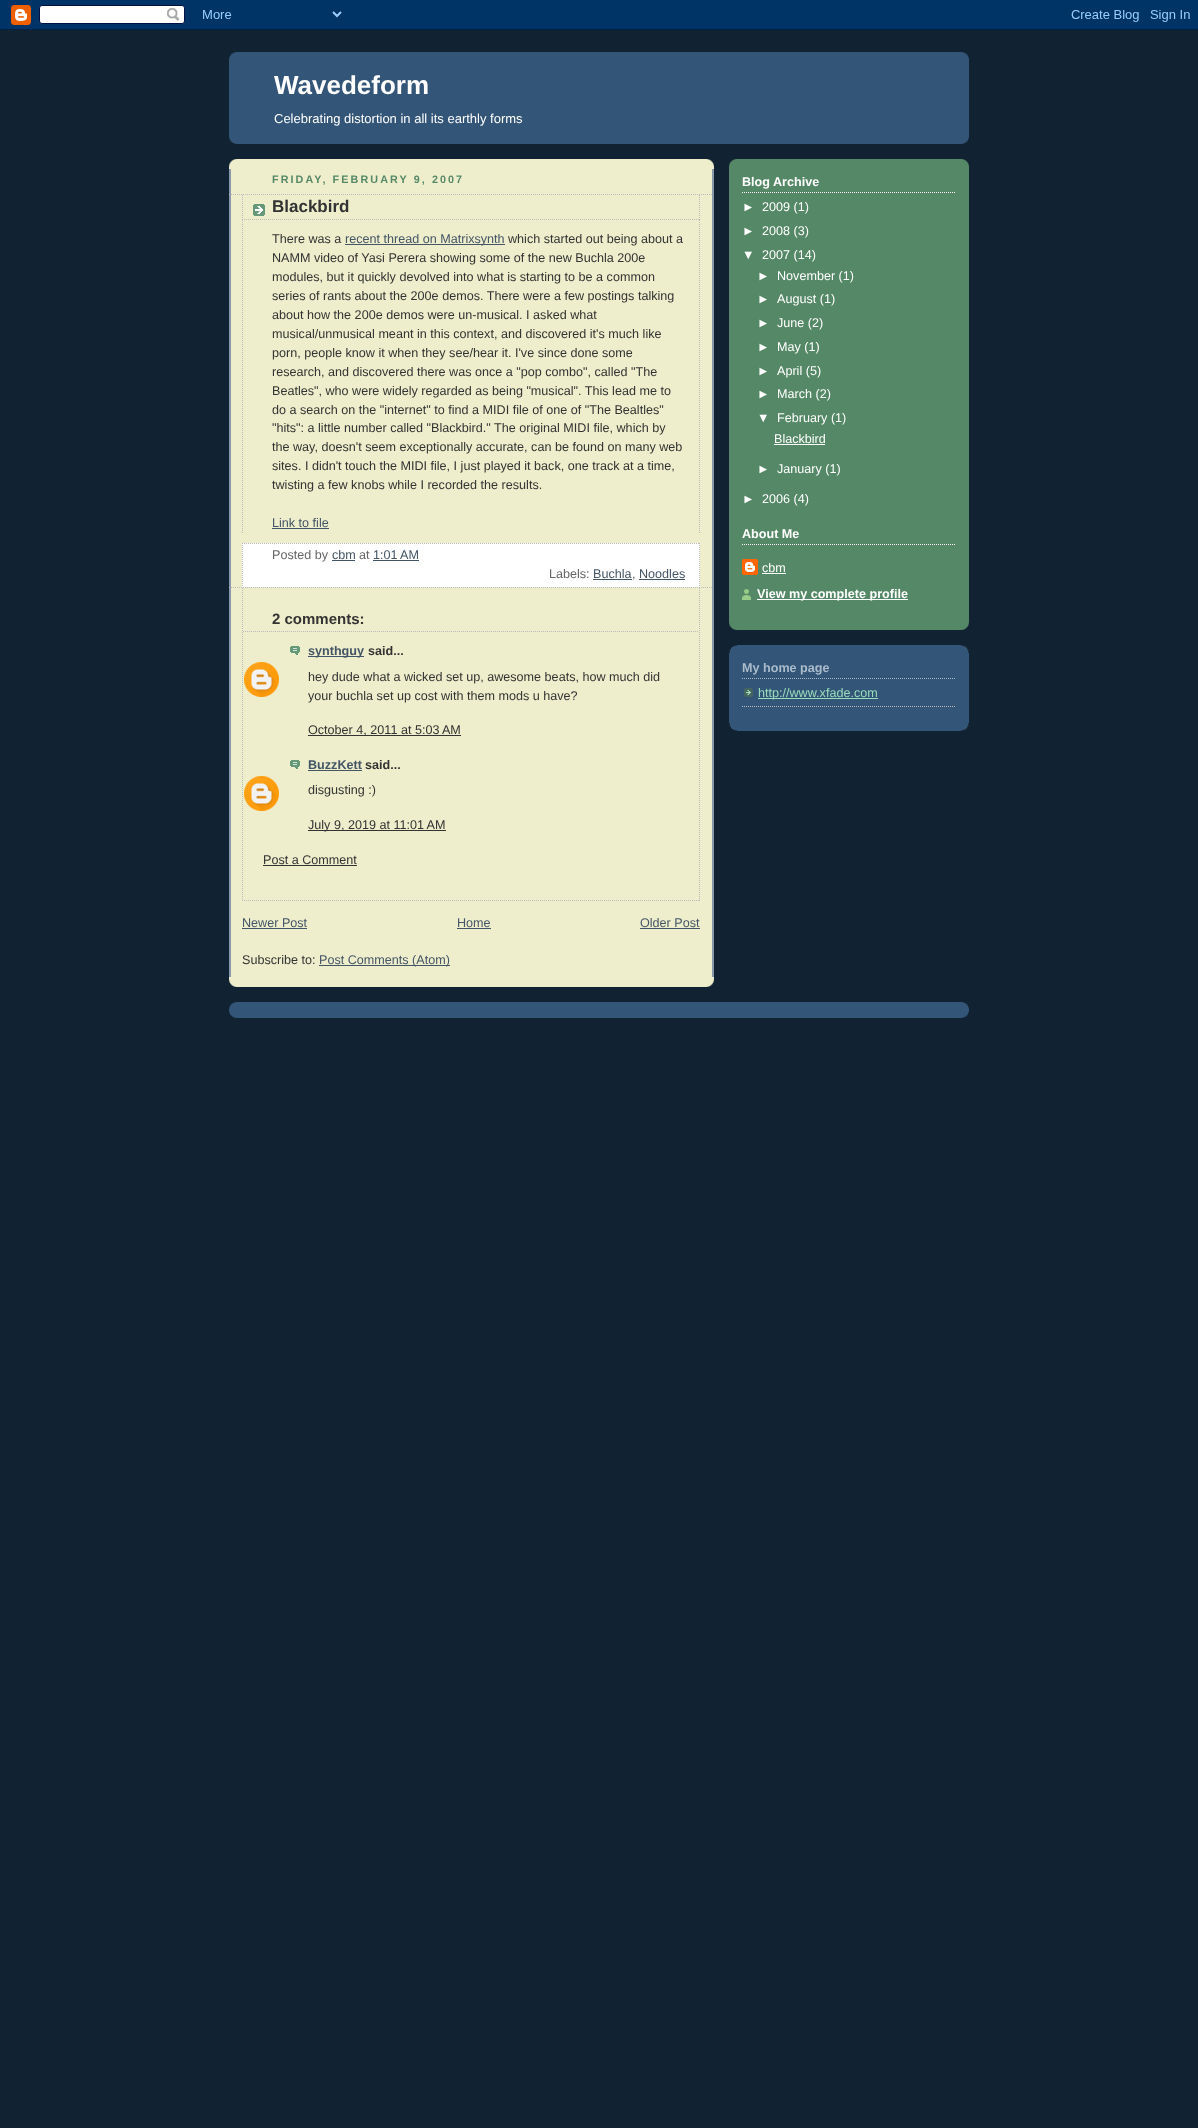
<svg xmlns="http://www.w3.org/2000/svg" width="1198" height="2128">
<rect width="100%" height="100%" fill="#123"/>
<image x="0" y="0" width="1198" height="30" href="media/1.png"/>
<rect x="229" y="52" width="740" height="92" fill="#357"/>
<image x="229" y="52" width="740" height="7" href="media/2.png"/>
<image x="229" y="137" width="740" height="7" href="media/3.png"/>
<text x="274" y="94" style="font-family:Liberation Sans;font-size:26px;font-weight:bold;fill:#fff">Wavedeform</text>
<text x="274" y="123" style="font-family:Liberation Sans;font-size:13px;fill:#fff">Celebrating distortion in all its earthly forms</text>
<rect x="229" y="159" width="485" height="828" fill="#eec"/>
<image x="229" y="979" width="485" height="8" href="media/4.png"/>
<image x="229" y="159" width="485" height="8" href="media/5.png"/>
<image x="229" y="169" width="485" height="808" href="media/6.png"/>
<text x="272" y="183" style="font-family:Liberation Sans;font-size:10.75px;font-weight:bold;letter-spacing:2.1px;fill:#586">FRIDAY, FEBRUARY 9, 2007</text>
<path d="M229 194.5h484" fill="none" stroke="#bbb" stroke-dasharray="1 1"/>
<path d="M229 587.5h484" fill="none" stroke="#bbb" stroke-dasharray="1 1"/>
<image x="253" y="204" width="12" height="12" href="media/7.png"/>
<path d="M699.5 195v25" fill="none" stroke="#bbb" stroke-dasharray="1 1"/>
<path d="M242 219.5h458" fill="none" stroke="#bbb" stroke-dasharray="1 1"/>
<path d="M242.5 195v25" fill="none" stroke="#bbb" stroke-dasharray="1 1"/>
<text x="272" y="212" style="font-family:Liberation Sans;font-size:17px;font-weight:bold;fill:#333">Blackbird</text>
<path d="M699.5 220v314" fill="none" stroke="#bbb" stroke-dasharray="1 1"/>
<path d="M242.5 220v314" fill="none" stroke="#bbb" stroke-dasharray="1 1"/>
<text x="272" y="243" style="font-family:Liberation Sans;font-size:12.6px;fill:#333">There was a</text>
<rect x="345" y="244" width="160" height="1" fill="#456"/>
<text x="345" y="243" style="font-family:Liberation Sans;font-size:12.6px;fill:#456">recent thread on Matrixsynth</text>
<text x="508" y="243" style="font-family:Liberation Sans;font-size:12.6px;fill:#333">which started out being about a</text>
<text x="272" y="262" style="font-family:Liberation Sans;font-size:12.6px;fill:#333">NAMM video of Yasi Perera showing some of the new Buchla 200e</text>
<text x="272" y="281" style="font-family:Liberation Sans;font-size:12.6px;fill:#333">modules, but it quickly devolved into what is starting to be a common</text>
<text x="272" y="300" style="font-family:Liberation Sans;font-size:12.6px;fill:#333">series of rants about the 200e demos. There were a few postings talking</text>
<text x="272" y="319" style="font-family:Liberation Sans;font-size:12.6px;fill:#333">about how the 200e demos were un-musical. I asked what</text>
<text x="272" y="338" style="font-family:Liberation Sans;font-size:12.6px;fill:#333">musical/unmusical meant in this context, and discovered it's much like</text>
<text x="272" y="357" style="font-family:Liberation Sans;font-size:12.6px;fill:#333">porn, people know it when they see/hear it. I've since done some</text>
<text x="272" y="376" style="font-family:Liberation Sans;font-size:12.6px;fill:#333">research, and discovered there was once a "pop combo", called "The</text>
<text x="272" y="395" style="font-family:Liberation Sans;font-size:12.6px;fill:#333">Beatles", who were widely regarded as being "musical". This lead me to</text>
<text x="272" y="414" style="font-family:Liberation Sans;font-size:12.6px;fill:#333">do a search on the "internet" to find a MIDI file of one of "The Bealtles"</text>
<text x="272" y="432" style="font-family:Liberation Sans;font-size:12.6px;fill:#333">"hits": a little number called "Blackbird." The original MIDI file, which by</text>
<text x="272" y="451" style="font-family:Liberation Sans;font-size:12.6px;fill:#333">the way, doesn't seem exceptionally accurate, can be found on many web</text>
<text x="272" y="470" style="font-family:Liberation Sans;font-size:12.6px;fill:#333">sites. I didn't touch the MIDI file, I just played it back, one track at a time,</text>
<text x="272" y="489" style="font-family:Liberation Sans;font-size:12.6px;fill:#333">twisting a few knobs while I recorded the results.</text>
<text x="272" y="527" style="font-family:Liberation Sans;font-size:12.6px;fill:#456">Link to file</text>
<rect x="272" y="528" width="57" height="1" fill="#456"/>
<rect x="242" y="543" width="458" height="44" fill="#fff"/>
<path d="M242 543.5h458" fill="none" stroke="#bbb" stroke-dasharray="1 1"/>
<path d="M699.5 543v44" fill="none" stroke="#bbb" stroke-dasharray="1 1"/>
<path d="M242.5 543v44" fill="none" stroke="#bbb" stroke-dasharray="1 1"/>
<text x="272" y="559" style="font-family:Liberation Sans;font-size:12.6px;fill:#666">Posted by</text>
<text x="332" y="559" style="font-family:Liberation Sans;font-size:12.6px;fill:#456">cbm</text>
<rect x="332" y="560" width="23" height="1" fill="#456"/>
<text x="359" y="559" style="font-family:Liberation Sans;font-size:12.6px;fill:#666">at</text>
<text x="373" y="559" style="font-family:Liberation Sans;font-size:12.6px;fill:#456">1:01 AM</text>
<rect x="373" y="560" width="46" height="1" fill="#456"/>
<text x="549" y="578" style="font-family:Liberation Sans;font-size:12.6px;fill:#666">Labels:</text>
<text x="593" y="578" style="font-family:Liberation Sans;font-size:12.6px;fill:#456">Buchla</text>
<text x="632" y="578" style="font-family:Liberation Sans;font-size:12.6px;fill:#666">,</text>
<rect x="593" y="579" width="39" height="1" fill="#456"/>
<rect x="639" y="579" width="46" height="1" fill="#456"/>
<text x="639" y="578" style="font-family:Liberation Sans;font-size:12.6px;fill:#456">Noodles</text>
<path d="M699.5 588v313" fill="none" stroke="#bbb" stroke-dasharray="1 1"/>
<path d="M242 900.5h458" fill="none" stroke="#bbb" stroke-dasharray="1 1"/>
<path d="M242.5 588v313" fill="none" stroke="#bbb" stroke-dasharray="1 1"/>
<path d="M243 631.5h456" fill="none" stroke="#bbb" stroke-dasharray="1 1"/>
<text x="272" y="624" style="font-family:Liberation Sans;font-size:15px;font-weight:bold;fill:#333">2 comments:</text>
<image x="290" y="646" width="10" height="9" href="media/8.png"/>
<rect x="308" y="656" width="56" height="1" fill="#456"/>
<text x="308" y="655" style="font-family:Liberation Sans;font-size:12.6px;font-weight:bold;fill:#456">synthguy</text>
<text x="368" y="655" style="font-family:Liberation Sans;font-size:12.6px;font-weight:bold;fill:#333">said...</text>
<image x="244" y="662" width="35" height="35" href="media/9.png"/>
<text x="308" y="681" style="font-family:Liberation Sans;font-size:12.6px;fill:#333">hey dude what a wicked set up, awesome beats, how much did</text>
<text x="308" y="700" style="font-family:Liberation Sans;font-size:12.6px;fill:#333">your buchla set up cost with them mods u have?</text>
<rect x="308" y="735" width="153" height="1" fill="#333"/>
<text x="308" y="734" style="font-family:Liberation Sans;font-size:12.6px;fill:#333">October 4, 2011 at 5:03 AM</text>
<image x="290" y="760" width="10" height="9" href="media/8.png"/>
<text x="308" y="769" style="font-family:Liberation Sans;font-size:12.6px;font-weight:bold;fill:#456">BuzzKett</text>
<rect x="308" y="770" width="54" height="1" fill="#456"/>
<text x="365" y="769" style="font-family:Liberation Sans;font-size:12.6px;font-weight:bold;fill:#333">said...</text>
<image x="244" y="776" width="35" height="35" href="media/9.png"/>
<text x="308" y="794" style="font-family:Liberation Sans;font-size:12.6px;fill:#333">disgusting :)</text>
<rect x="308" y="830" width="138" height="1" fill="#333"/>
<text x="308" y="829" style="font-family:Liberation Sans;font-size:12.6px;fill:#333">July 9, 2019 at 11:01 AM</text>
<text x="263" y="864" style="font-family:Liberation Sans;font-size:12.6px;fill:#333">Post a Comment</text>
<rect x="263" y="865" width="94" height="1" fill="#333"/>
<text x="242" y="927" style="font-family:Liberation Sans;font-size:12.6px;fill:#456">Newer Post</text>
<rect x="242" y="928" width="65" height="1" fill="#456"/>
<text x="457" y="927" style="font-family:Liberation Sans;font-size:12.6px;fill:#456">Home</text>
<rect x="457" y="928" width="34" height="1" fill="#456"/>
<text x="640" y="927" style="font-family:Liberation Sans;font-size:12.6px;fill:#456">Older Post</text>
<rect x="640" y="928" width="60" height="1" fill="#456"/>
<text x="242" y="964" style="font-family:Liberation Sans;font-size:12.6px;fill:#333">Subscribe to:</text>
<rect x="319" y="965" width="131" height="1" fill="#456"/>
<text x="319" y="964" style="font-family:Liberation Sans;font-size:12.6px;fill:#456">Post Comments (Atom)</text>
<rect x="729" y="159" width="240" height="471" fill="#586"/>
<image x="729" y="622" width="240" height="8" href="media/10.png"/>
<image x="729" y="159" width="240" height="8" href="media/11.png"/>
<path d="M742 192.5h214" fill="none" stroke="#fff" stroke-dasharray="1 1"/>
<text x="742" y="186" style="font-family:Liberation Sans;font-size:12.6px;font-weight:bold;fill:#fff">Blog Archive</text>
<text x="742" y="211" style="font-family:Liberation Sans;font-size:12.6px;fill:#fff">►</text>
<text x="762" y="211" style="font-family:Liberation Sans;font-size:12.6px;fill:#fff">2009 (1)</text>
<text x="742" y="235" style="font-family:Liberation Sans;font-size:12.6px;fill:#fff">►</text>
<text x="762" y="235" style="font-family:Liberation Sans;font-size:12.6px;fill:#fff">2008 (3)</text>
<text x="742" y="259" style="font-family:Liberation Sans;font-size:12.6px;fill:#fff">▼</text>
<text x="762" y="259" style="font-family:Liberation Sans;font-size:12.6px;fill:#fff">2007 (14)</text>
<text x="757" y="280" style="font-family:Liberation Sans;font-size:12.6px;fill:#fff">►</text>
<text x="777" y="280" style="font-family:Liberation Sans;font-size:12.6px;fill:#fff">November (1)</text>
<text x="757" y="303" style="font-family:Liberation Sans;font-size:12.6px;fill:#fff">►</text>
<text x="777" y="303" style="font-family:Liberation Sans;font-size:12.6px;fill:#fff">August (1)</text>
<text x="757" y="327" style="font-family:Liberation Sans;font-size:12.6px;fill:#fff">►</text>
<text x="777" y="327" style="font-family:Liberation Sans;font-size:12.6px;fill:#fff">June (2)</text>
<text x="757" y="351" style="font-family:Liberation Sans;font-size:12.6px;fill:#fff">►</text>
<text x="777" y="351" style="font-family:Liberation Sans;font-size:12.6px;fill:#fff">May (1)</text>
<text x="757" y="375" style="font-family:Liberation Sans;font-size:12.6px;fill:#fff">►</text>
<text x="777" y="375" style="font-family:Liberation Sans;font-size:12.6px;fill:#fff">April (5)</text>
<text x="757" y="398" style="font-family:Liberation Sans;font-size:12.6px;fill:#fff">►</text>
<text x="777" y="398" style="font-family:Liberation Sans;font-size:12.6px;fill:#fff">March (2)</text>
<text x="757" y="422" style="font-family:Liberation Sans;font-size:12.6px;fill:#fff">▼</text>
<text x="777" y="422" style="font-family:Liberation Sans;font-size:12.6px;fill:#fff">February (1)</text>
<text x="774" y="443" style="font-family:Liberation Sans;font-size:12.6px;fill:#fff">Blackbird</text>
<rect x="774" y="444" width="51" height="1" fill="#fff"/>
<text x="757" y="473" style="font-family:Liberation Sans;font-size:12.6px;fill:#fff">►</text>
<text x="777" y="473" style="font-family:Liberation Sans;font-size:12.6px;fill:#fff">January (1)</text>
<text x="742" y="503" style="font-family:Liberation Sans;font-size:12.6px;fill:#fff">►</text>
<text x="762" y="503" style="font-family:Liberation Sans;font-size:12.6px;fill:#fff">2006 (4)</text>
<path d="M742 544.5h214" fill="none" stroke="#fff" stroke-dasharray="1 1"/>
<text x="742" y="538" style="font-family:Liberation Sans;font-size:12.6px;font-weight:bold;fill:#fff">About Me</text>
<image x="742" y="559" width="16" height="16" href="media/12.png"/>
<text x="762" y="572" style="font-family:Liberation Sans;font-size:12.6px;fill:#fff">cbm</text>
<rect x="762" y="573" width="24" height="1" fill="#fff"/>
<image x="742" y="589" width="9" height="11" href="media/13.png"/>
<rect x="757" y="599" width="151" height="1" fill="#fff"/>
<text x="757" y="598" style="font-family:Liberation Sans;font-size:12.6px;font-weight:bold;fill:#fff">View my complete profile</text>
<rect x="729" y="645" width="240" height="86" fill="#357"/>
<image x="729" y="645" width="240" height="8" href="media/14.png"/>
<image x="729" y="723" width="240" height="8" href="media/15.png"/>
<path d="M742 678.5h214" fill="none" stroke="#abc" stroke-dasharray="1 1"/>
<text x="742" y="672" style="font-family:Liberation Sans;font-size:12.6px;font-weight:bold;fill:#abc">My home page</text>
<image x="744" y="688" width="9" height="9" href="media/16.png"/>
<path d="M742 706.5h214" fill="none" stroke="#bbb" stroke-dasharray="1 1"/>
<rect x="758" y="698" width="120" height="1" fill="#9db"/>
<text x="758" y="697" style="font-family:Liberation Sans;font-size:12.6px;fill:#9db">http://www.xfade.com</text>
<rect x="229" y="1002" width="740" height="16" fill="#357"/>
<image x="229" y="1002" width="740" height="7" href="media/2.png"/>
<image x="229" y="1011" width="740" height="7" href="media/3.png"/>
</svg>
